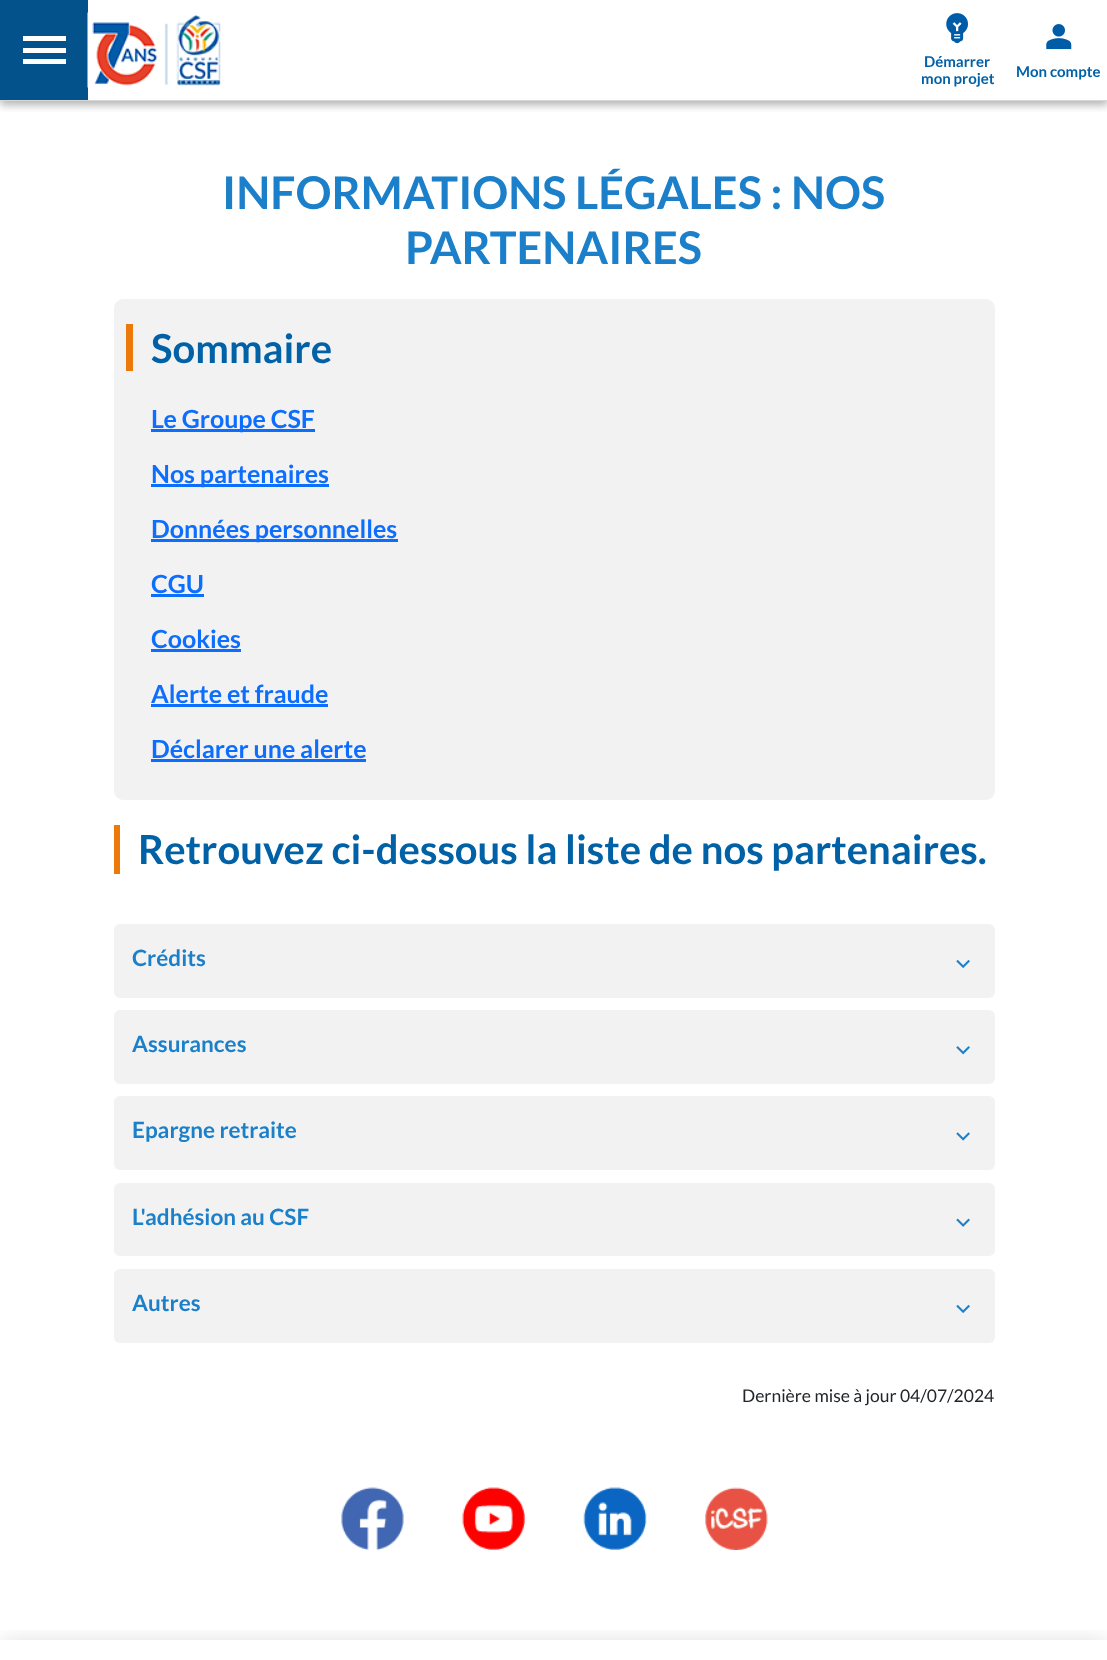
<svg xmlns="http://www.w3.org/2000/svg" width="1107" height="1660">
<defs>
<clipPath id="clip1"><rect x="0" y="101" width="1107" height="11"/></clipPath>
<clipPath id="clip2"><rect x="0" y="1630" width="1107" height="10"/></clipPath>
</defs>
<rect width="100%" height="100%" fill="#fff"/>
<g clip-path="url(#clip1)">
<rect y="4" width="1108" height="101" fill="#0000004d" filter="blur(4.5px)"/>
</g>
<rect y="100" width="1107" height="1" fill="#d8d8d8"/>
<rect width="88" height="100" fill="#03528b"/>
<rect x="23" y="36" width="43" height="5" fill="#fff"/>
<rect x="23" y="48" width="43" height="5" fill="#fff"/>
<rect x="23" y="59" width="43" height="5" fill="#fff"/>
<image x="87" y="12" width="134" height="76" href="media/1.png"/>
<image x="946" y="13" width="22" height="31" href="media/2.png"/>
<text x="924" y="67" style="font-family:Lato;font-size:15px;font-weight:bold;fill:#0061a7">Démarrer</text>
<text x="921" y="84" style="font-family:Lato;font-size:15px;font-weight:bold;fill:#0061a7">mon projet</text>
<image x="1046" y="24" width="26" height="26" href="media/3.png"/>
<text x="1016" y="77" style="font-family:Lato;font-size:15px;font-weight:bold;fill:#0061a7">Mon compte</text>
<text x="222" y="209" style="font-family:Lato;font-size:45px;font-weight:bold;fill:#1b80c9">INFORMATIONS LÉGALES : NOS</text>
<text x="405" y="264" style="font-family:Lato;font-size:45px;font-weight:bold;fill:#1b80c9">PARTENAIRES</text>
<rect x="114" y="299" width="881" height="501" rx="9" fill="#f2f2f2"/>
<rect x="126" y="324" width="7" height="47" fill="#ec7a0a"/>
<text x="151" y="363" style="font-family:Lato;font-size:40px;font-weight:bold;fill:#0061a7">Sommaire</text>
<rect x="151" y="429" width="164" height="3" fill="#0d6efd"/>
<text x="151" y="428" style="font-family:Lato;font-size:25px;font-weight:bold;fill:#0d6efd">Le Groupe CSF</text>
<rect x="151" y="484" width="178" height="3" fill="#0d6efd"/>
<text x="151" y="483" style="font-family:Lato;font-size:25px;font-weight:bold;fill:#0d6efd">Nos partenaires</text>
<rect x="151" y="539" width="247" height="3" fill="#0d6efd"/>
<text x="151" y="538" style="font-family:Lato;font-size:25px;font-weight:bold;fill:#0d6efd">Données personnelles</text>
<text x="151" y="593" style="font-family:Lato;font-size:25px;font-weight:bold;fill:#0d6efd">CGU</text>
<rect x="151" y="594" width="53" height="3" fill="#0d6efd"/>
<text x="151" y="648" style="font-family:Lato;font-size:25px;font-weight:bold;fill:#0d6efd">Cookies</text>
<rect x="151" y="649" width="90" height="3" fill="#0d6efd"/>
<text x="151" y="703" style="font-family:Lato;font-size:25px;font-weight:bold;fill:#0d6efd">Alerte et fraude</text>
<rect x="151" y="704" width="177" height="3" fill="#0d6efd"/>
<text x="151" y="758" style="font-family:Lato;font-size:25px;font-weight:bold;fill:#0d6efd">Déclarer une alerte</text>
<rect x="151" y="759" width="215" height="3" fill="#0d6efd"/>
<rect x="114" y="825" width="6" height="49" fill="#ec7a0a"/>
<text x="138" y="864" style="font-family:Lato;font-size:40px;font-weight:bold;fill:#0061a7">Retrouvez ci-dessous la liste de nos partenaires.</text>
<rect x="114" y="924" width="881" height="74" rx="6" fill="#f2f2f2"/>
<text x="132" y="966" style="font-family:Lato;font-size:22.5px;font-weight:bold;fill:#1b80c9">Crédits</text>
<image x="956" y="959" width="14" height="10" href="media/4.png"/>
<rect x="114" y="1010" width="881" height="74" rx="6" fill="#f2f2f2"/>
<text x="132" y="1052" style="font-family:Lato;font-size:22.5px;font-weight:bold;fill:#1b80c9">Assurances</text>
<image x="956" y="1046" width="14" height="9" href="media/5.png"/>
<rect x="114" y="1096" width="881" height="74" rx="6" fill="#f2f2f2"/>
<text x="132" y="1138" style="font-family:Lato;font-size:22.5px;font-weight:bold;fill:#1b80c9">Epargne retraite</text>
<image x="956" y="1132" width="14" height="9" href="media/6.png"/>
<rect x="114" y="1183" width="881" height="73" rx="6" fill="#f2f2f2"/>
<text x="132" y="1225" style="font-family:Lato;font-size:22.5px;font-weight:bold;fill:#1b80c9">L'adhésion au CSF</text>
<image x="956" y="1218" width="14" height="9" href="media/7.png"/>
<rect x="114" y="1269" width="881" height="74" rx="6" fill="#f2f2f2"/>
<text x="132" y="1311" style="font-family:Lato;font-size:22.5px;font-weight:bold;fill:#1b80c9">Autres</text>
<image x="956" y="1304" width="14" height="10" href="media/4.png"/>
<text x="742" y="1402" style="font-family:Lato;font-size:17.5px;fill:#212529">Dernière mise à jour 04/07/2024</text>
<image x="341" y="1487" width="63" height="63" href="media/8.png"/>
<image x="462" y="1487" width="63" height="63" href="media/9.png"/>
<image x="583" y="1487" width="64" height="63" href="media/10.png"/>
<image x="705" y="1487" width="63" height="63" href="media/11.png"/>
<g clip-path="url(#clip2)">
<rect y="1644" width="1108" height="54" fill="#00000029" filter="blur(12.5px)"/>
</g>
</svg>
